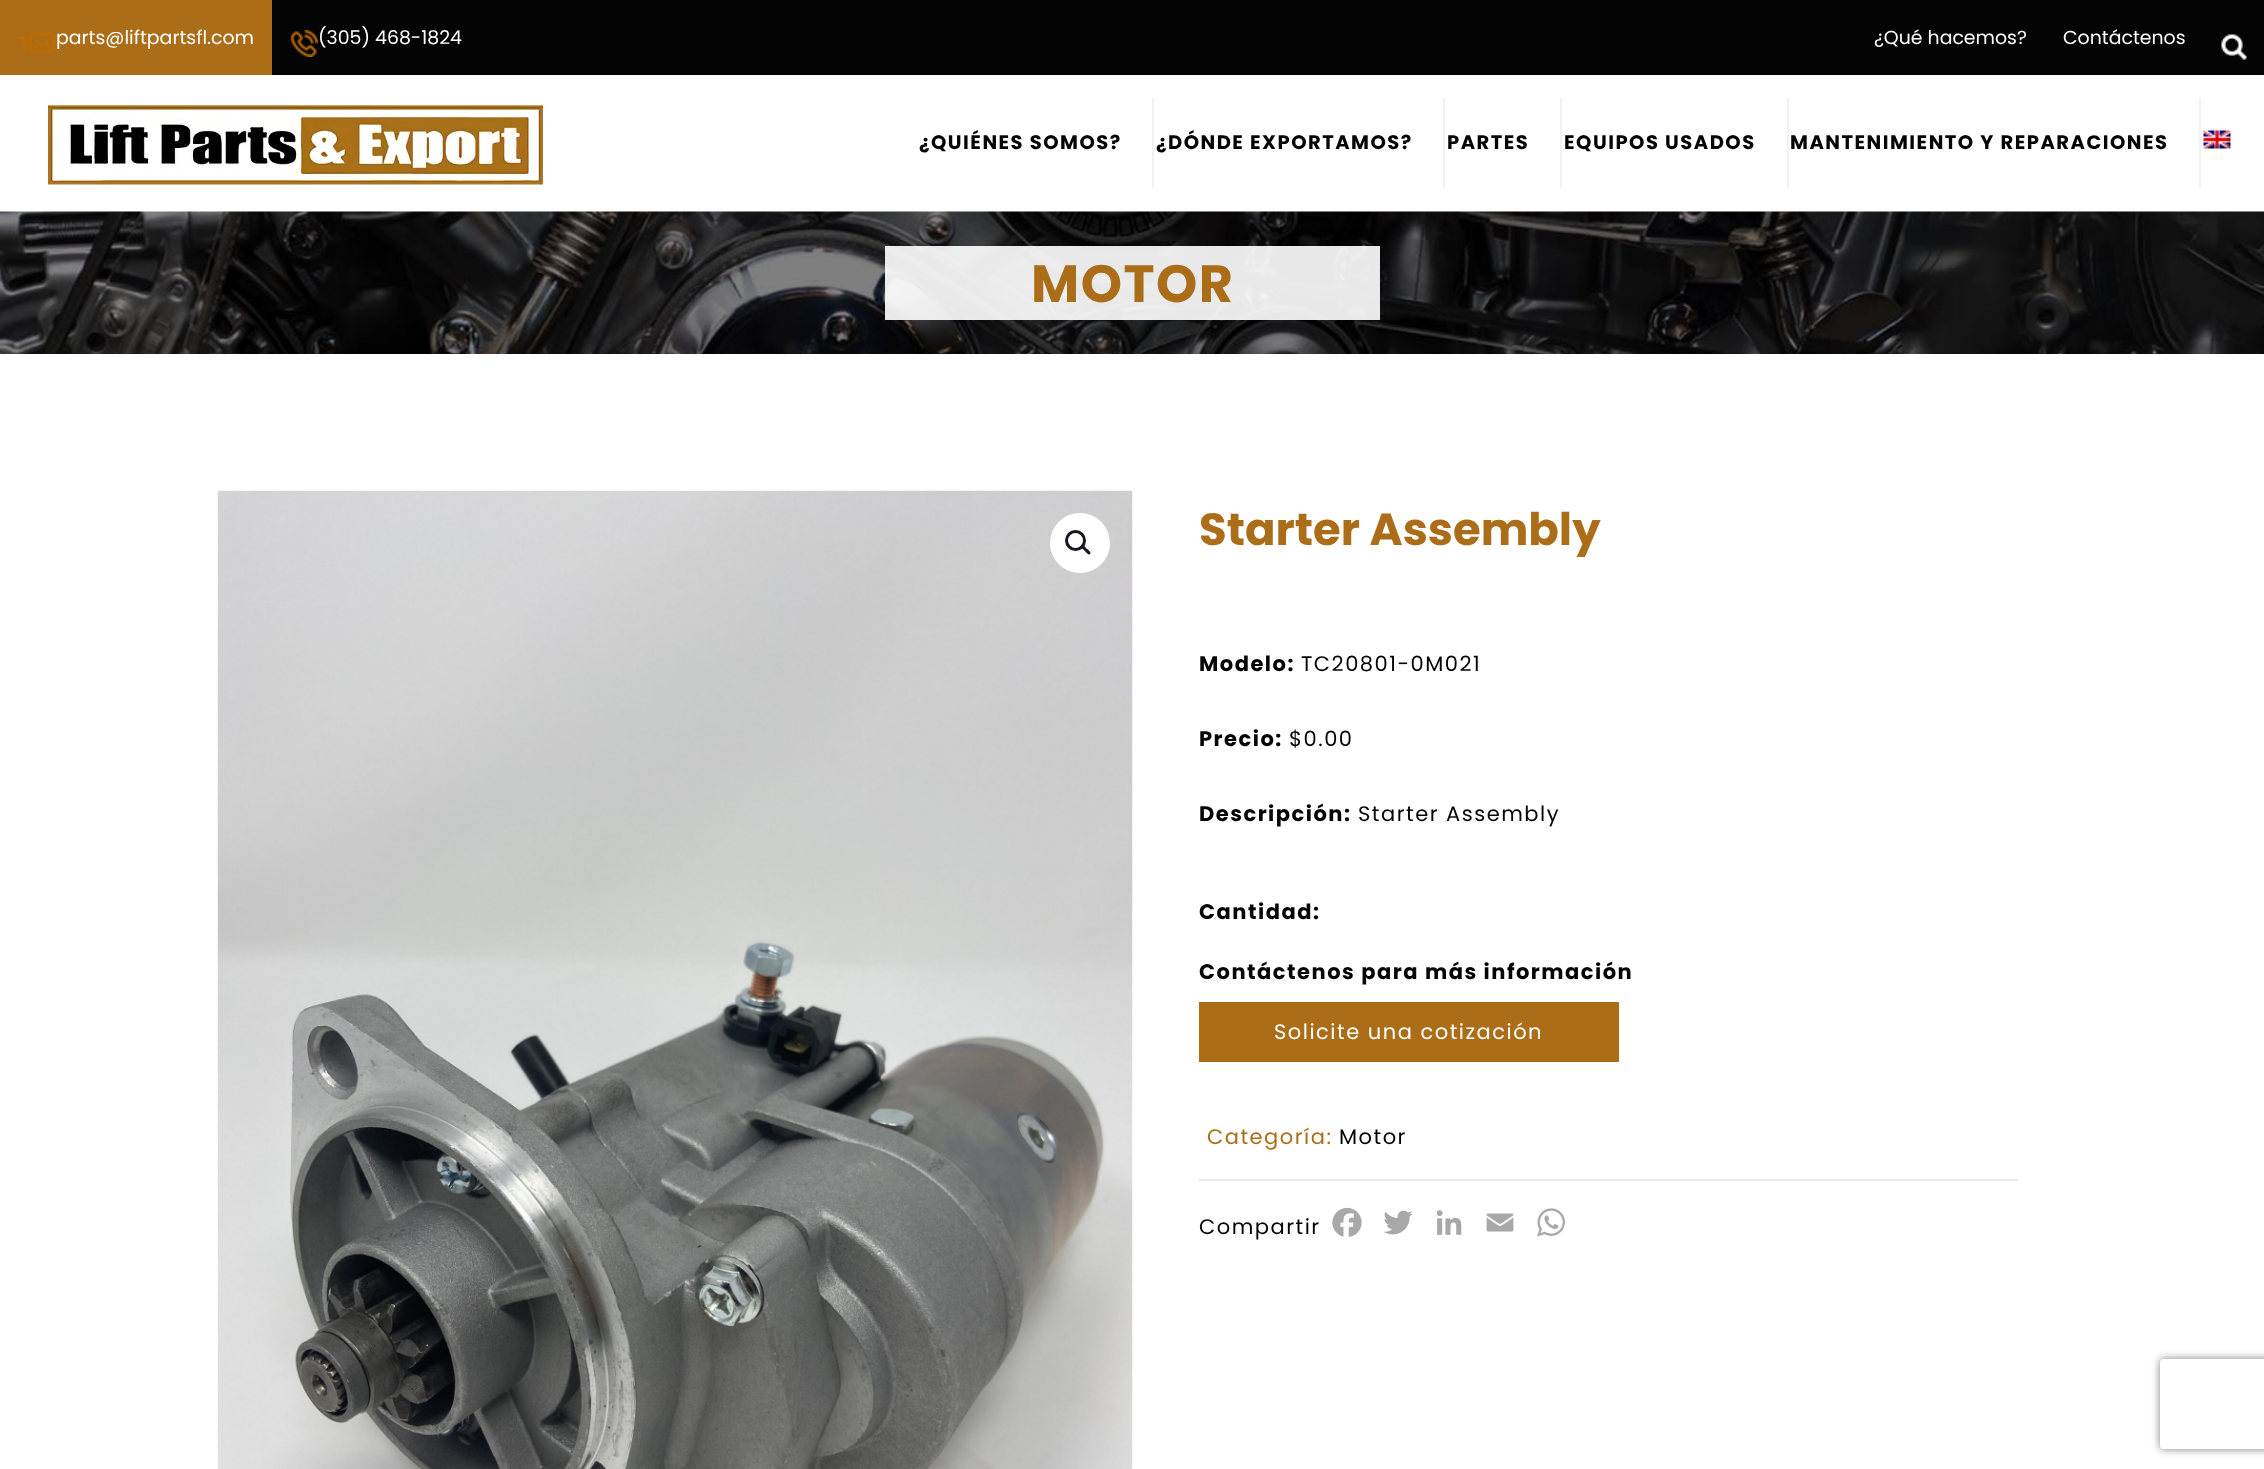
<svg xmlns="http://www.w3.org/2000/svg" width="2264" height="1469">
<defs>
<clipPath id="clip1"><path d="M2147 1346h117v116h-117zm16 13h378c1.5 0 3 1.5 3 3v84c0 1.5-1.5 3-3 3h-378c-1.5 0-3-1.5-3-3v-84c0-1.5 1.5-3 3-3z" clip-rule="evenodd"/></clipPath>
</defs>
<rect width="100%" height="100%" fill="#fff"/>
<rect x="272" width="1992" height="75" fill="#040404"/>
<rect width="272" height="75" fill="#ab6d17"/>
<image x="18" y="33" width="38" height="20" href="media/1.png"/>
<text x="56" y="44" style="font-family:Poppins;font-size:18.9px;fill:#fff">parts@liftpartsfl.com</text>
<image x="290" y="30" width="28" height="27" href="media/2.png"/>
<text x="318" y="44" style="font-family:Poppins;font-size:18.9px;fill:#fff">(305) 468-1824</text>
<text x="1874" y="44" style="font-family:Poppins;font-size:18.9px;fill:#fff">¿Qué hacemos?</text>
<text x="2063" y="44" style="font-family:Poppins;font-size:18.9px;fill:#fff">Contáctenos</text>
<image x="2221" y="34" width="26" height="26" href="media/3.png"/>
<image x="48" y="105" width="495" height="80" href="media/4.png"/>
<rect x="1152" y="98" width="2" height="90" fill="#f2f2f2"/>
<text x="919" y="149" style="font-family:Poppins;font-size:19.5px;font-weight:bold;letter-spacing:1.5px;fill:#040404">¿QUIÉNES SOMOS?</text>
<rect x="1443" y="98" width="2" height="90" fill="#f2f2f2"/>
<text x="1156" y="149" style="font-family:Poppins;font-size:19.5px;font-weight:bold;letter-spacing:1.5px;fill:#040404">¿DÓNDE EXPORTAMOS?</text>
<rect x="1560" y="98" width="2" height="90" fill="#f2f2f2"/>
<text x="1447" y="149" style="font-family:Poppins;font-size:19.5px;font-weight:bold;letter-spacing:1.5px;fill:#040404">PARTES</text>
<rect x="1787" y="98" width="2" height="90" fill="#f2f2f2"/>
<text x="1564" y="149" style="font-family:Poppins;font-size:19.5px;font-weight:bold;letter-spacing:1.5px;fill:#040404">EQUIPOS USADOS</text>
<rect x="2199" y="98" width="2" height="90" fill="#f2f2f2"/>
<text x="1790" y="149" style="font-family:Poppins;font-size:19.5px;font-weight:bold;letter-spacing:1.5px;fill:#040404">MANTENIMIENTO Y REPARACIONES</text>
<image x="2203" y="130" width="28" height="19" href="media/5.png"/>
<image x="0" y="211" width="2264" height="143" href="media/6.png"/>
<rect x="885" y="246" width="495" height="74" fill="#ffffffe8"/>
<text x="1031" y="302" style="font-family:Poppins;font-size:52.5px;font-weight:bold;letter-spacing:1.5px;fill:#ab6d17">MOTOR</text>
<image x="217" y="490" width="916" height="979" href="media/7.png"/>
<circle cx="1080" cy="543" r="30" fill="#fff"/>
<circle cx="1075.5" cy="540.5" r="9" fill="none" stroke="#161922" stroke-width="3"/>
<path d="M1082 545.5c1.5-1.5 4 2.5 5 3.5c1 .5 5 3.5 3 5c-1.5 2-4-2-5-3c-1-1-5-3.5-3-5.5z" fill="#161922"/>
<text x="1199" y="545" style="font-family:Poppins;font-size:45px;font-weight:bold;fill:#ab6d17">Starter Assembly</text>
<text x="1199" y="671" style="font-family:Poppins;font-size:21px;font-weight:bold;letter-spacing:1.5px;fill:#040404">Modelo:</text>
<text x="1301" y="671" style="font-family:Poppins;font-size:21px;letter-spacing:1.5px;fill:#040404">TC20801-0M021</text>
<text x="1199" y="746" style="font-family:Poppins;font-size:21px;font-weight:bold;letter-spacing:1.5px;fill:#040404">Precio:</text>
<text x="1289" y="746" style="font-family:Poppins;font-size:21px;letter-spacing:1.5px;fill:#040404">$0.00</text>
<text x="1199" y="821" style="font-family:Poppins;font-size:21px;font-weight:bold;letter-spacing:1.5px;fill:#040404">Descripción:</text>
<text x="1358" y="821" style="font-family:Poppins;font-size:21px;letter-spacing:1.5px;fill:#040404">Starter Assembly</text>
<text x="1199" y="919" style="font-family:Poppins;font-size:21px;font-weight:bold;letter-spacing:1.5px;fill:#040404">Cantidad:</text>
<text x="1199" y="979" style="font-family:Poppins;font-size:21px;font-weight:bold;letter-spacing:1.5px;fill:#040404">Contáctenos para más información</text>
<rect x="1199" y="1002" width="420" height="60" fill="#ab6d17"/>
<text x="1274" y="1039" style="font-family:Poppins;font-size:21px;letter-spacing:1.5px;fill:#fff">Solicite una cotización</text>
<text x="1207" y="1144" style="font-family:Poppins;font-size:21px;letter-spacing:1.5px;fill:#ab6d17">Categoría:</text>
<text x="1339" y="1144" style="font-family:Poppins;font-size:21px;letter-spacing:1.5px;fill:#040404">Motor</text>
<rect x="1199" y="1179" width="819" height="2" fill="#ebebeb"/>
<text x="1199" y="1234" style="font-family:Poppins;font-size:21px;letter-spacing:1.5px;fill:#040404">Compartir</text>
<image x="1332" y="1207" width="30" height="30" href="media/8.png"/>
<image x="1383" y="1210" width="30" height="25" href="media/9.png"/>
<image x="1436" y="1210" width="26" height="25" href="media/10.png"/>
<image x="1486" y="1213" width="28" height="19" href="media/11.png"/>
<image x="1537" y="1208" width="28" height="29" href="media/12.png"/>
<g clip-path="url(#clip1)">
<rect x="2160" y="1359" width="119" height="90" rx="3" fill="#808080" filter="blur(4px)"/>
</g>
</svg>
